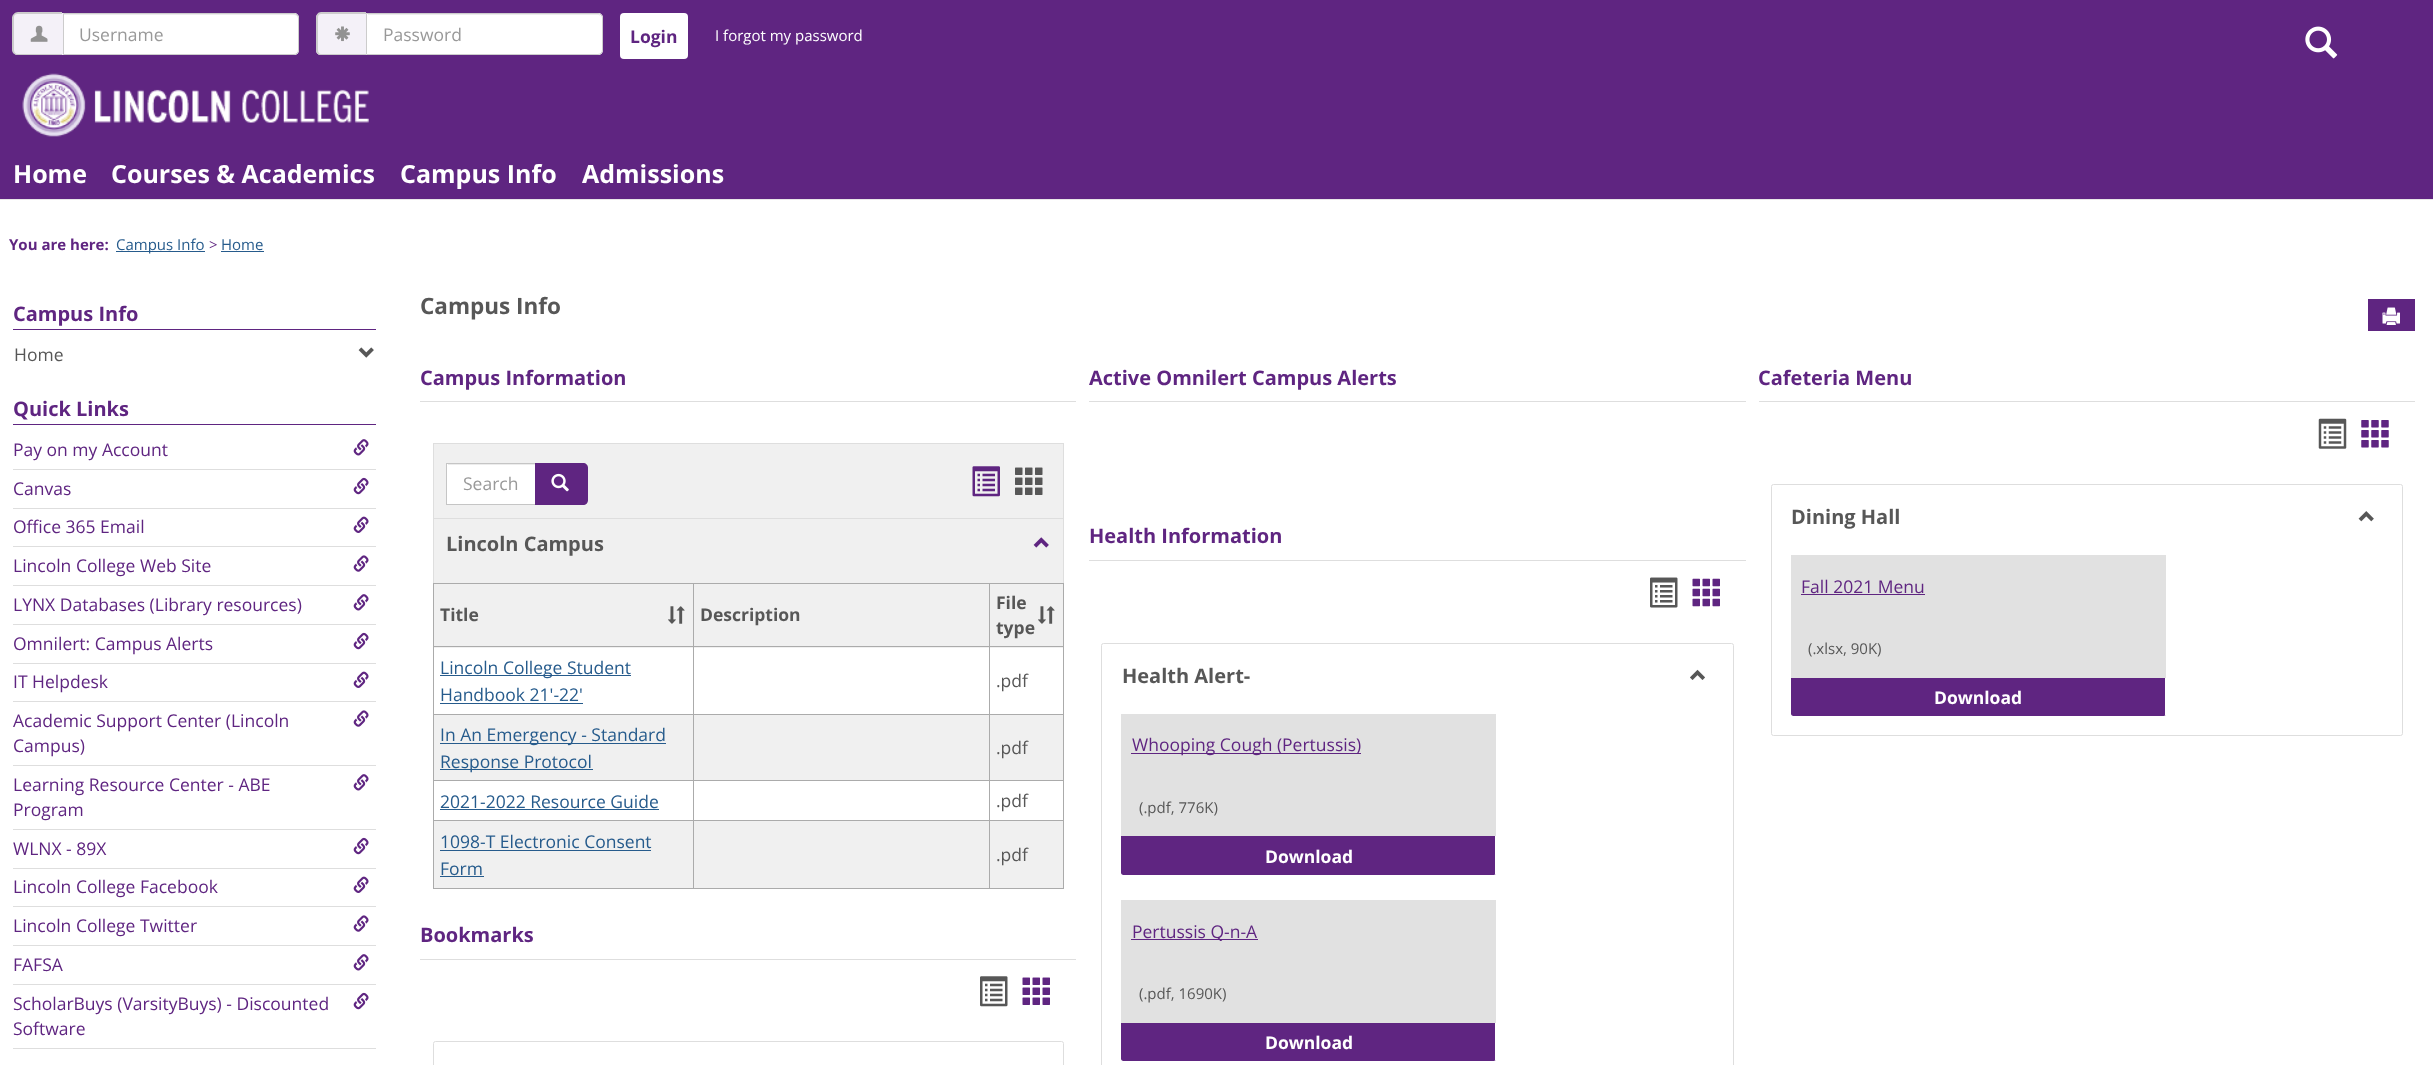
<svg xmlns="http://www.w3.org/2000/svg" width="2433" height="1065">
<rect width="100%" height="100%" fill="#fff"/>
<rect width="2433" height="199" fill="#5f2581"/>
<image x="22" y="73" width="347" height="64" href="media/1.png"/>
<rect y="199" width="2433" height="1" fill="#e7e7e7"/>
<path d="M18 13h45v42h-45c-3 0-5-2-5-5v-32c0-3 2-5 5-5z" fill="#f4f1f8"/>
<path d="M18 12h44v43h-44c-3 0-6-2-6-5v-32c0-3 3-6 6-6zm0 2h44v40h-44c-3 0-4-2-4-4v-32c0-3 1-4 4-4z" fill="#ccc" fill-rule="evenodd"/>
<image x="30" y="25" width="18" height="17" href="media/2.png"/>
<path d="M63 13h231c3 0 5 2 5 5v32c0 3-2 5-5 5h-231z" fill="#fff"/>
<path d="M64 15h230c2 0 4 2 4 4c0-3-1-5-4-5h-230z" fill="#ececec"/>
<path d="M63.5 13.5h230.5c2.5 0 4.5 2 4.5 4.5v32c0 2.5-2 4.5-4.5 4.5h-230.5z" fill="none" stroke="#ccc"/>
<text x="79" y="41" style="font-family:Open Sans;font-size:17.5px;fill:#999">Username</text>
<path d="M321 13h45v42h-45c-3 0-5-2-5-5v-32c0-3 2-5 5-5z" fill="#f4f1f8"/>
<path d="M321 12h45v43h-45c-3 0-5-2-5-5v-32c0-3 2-6 5-6zm0 2h45v40h-45c-2 0-3-2-3-4v-32c0-3 1-4 3-4z" fill="#ccc" fill-rule="evenodd"/>
<image x="335" y="26" width="15" height="16" href="media/3.png"/>
<path d="M366 13h232c3 0 5 2 5 5v32c0 3-2 5-5 5h-232z" fill="#fff"/>
<path d="M368 15h230c2 0 3 2 3 4c0-3-1-5-4-5h-229z" fill="#ececec"/>
<path d="M366.5 13.5h231.5c2.5 0 4.5 2 4.5 4.5v32c0 2.5-2 4.5-4.5 4.5h-231.5z" fill="none" stroke="#ccc"/>
<text x="383" y="41" style="font-family:Open Sans;font-size:17.5px;fill:#999">Password</text>
<rect x="620" y="13" width="68" height="46" rx="4" fill="#fff"/>
<text x="630" y="43" style="font-family:Open Sans;font-size:17.5px;font-weight:bold;fill:#5f2581">Login</text>
<text x="715" y="41" style="font-family:Open Sans;font-size:15px;fill:#fff">I forgot my password</text>
<image x="2305" y="26" width="33" height="33" href="media/4.png"/>
<text x="13" y="183" style="font-family:Open Sans;font-size:25px;font-weight:bold;fill:#fff">Home</text>
<text x="111" y="183" style="font-family:Open Sans;font-size:25px;font-weight:bold;fill:#fff">Courses &amp; Academics</text>
<text x="400" y="183" style="font-family:Open Sans;font-size:25px;font-weight:bold;fill:#fff">Campus Info</text>
<text x="582" y="183" style="font-family:Open Sans;font-size:25px;font-weight:bold;fill:#fff">Admissions</text>
<text x="9" y="250" style="font-family:Open Sans;font-size:15px;font-weight:bold;fill:#5f2581">You are here:</text>
<rect x="116" y="251" width="89" height="1" fill="#265b8c"/>
<text x="116" y="250" style="font-family:Open Sans;font-size:15px;fill:#265b8c">Campus Info</text>
<text x="209" y="250" style="font-family:Open Sans;font-size:15px;fill:#5f2581">&gt;</text>
<text x="221" y="250" style="font-family:Open Sans;font-size:15px;fill:#265b8c">Home</text>
<rect x="221" y="251" width="43" height="1" fill="#265b8c"/>
<rect x="13" y="329" width="363" height="1" fill="#5f2581"/>
<text x="13" y="321" style="font-family:Open Sans;font-size:20px;font-weight:bold;fill:#5f2581">Campus Info</text>
<text x="14" y="361" style="font-family:Open Sans;font-size:17.5px;fill:#575757">Home</text>
<image x="358" y="347" width="16" height="11" href="media/5.png"/>
<rect x="13" y="424" width="363" height="1" fill="#5f2581"/>
<text x="13" y="416" style="font-family:Open Sans;font-size:20px;font-weight:bold;fill:#5f2581">Quick Links</text>
<rect x="13" y="469" width="363" height="1" fill="#dedede"/>
<text x="13" y="456" style="font-family:Open Sans;font-size:17.5px;fill:#5f2581">Pay on my Account</text>
<image x="353" y="439" width="16" height="17" href="media/6.png"/>
<rect x="13" y="508" width="363" height="1" fill="#dedede"/>
<text x="13" y="495" style="font-family:Open Sans;font-size:17.5px;fill:#5f2581">Canvas</text>
<image x="353" y="477" width="16" height="18" href="media/7.png"/>
<rect x="13" y="546" width="363" height="1" fill="#dedede"/>
<text x="13" y="533" style="font-family:Open Sans;font-size:17.5px;fill:#5f2581">Office 365 Email</text>
<image x="353" y="516" width="16" height="17" href="media/8.png"/>
<rect x="13" y="585" width="363" height="1" fill="#dedede"/>
<text x="13" y="572" style="font-family:Open Sans;font-size:17.5px;fill:#5f2581">Lincoln College Web Site</text>
<image x="353" y="555" width="16" height="17" href="media/9.png"/>
<rect x="13" y="624" width="363" height="1" fill="#dedede"/>
<text x="13" y="611" style="font-family:Open Sans;font-size:17.5px;fill:#5f2581">LYNX Databases (Library resources)</text>
<image x="353" y="594" width="16" height="17" href="media/6.png"/>
<rect x="13" y="663" width="363" height="1" fill="#dedede"/>
<text x="13" y="650" style="font-family:Open Sans;font-size:17.5px;fill:#5f2581">Omnilert: Campus Alerts</text>
<image x="353" y="632" width="16" height="18" href="media/7.png"/>
<rect x="13" y="701" width="363" height="1" fill="#dedede"/>
<text x="13" y="688" style="font-family:Open Sans;font-size:17.5px;fill:#5f2581">IT Helpdesk</text>
<image x="353" y="671" width="16" height="17" href="media/8.png"/>
<rect x="13" y="765" width="363" height="1" fill="#dedede"/>
<text x="13" y="727" style="font-family:Open Sans;font-size:17.5px;fill:#5f2581">Academic Support Center (Lincoln</text>
<image x="353" y="710" width="16" height="17" href="media/9.png"/>
<text x="13" y="752" style="font-family:Open Sans;font-size:17.5px;fill:#5f2581">Campus)</text>
<rect x="13" y="829" width="363" height="1" fill="#dedede"/>
<text x="13" y="791" style="font-family:Open Sans;font-size:17.5px;fill:#5f2581">Learning Resource Center - ABE</text>
<image x="353" y="774" width="16" height="17" href="media/6.png"/>
<text x="13" y="816" style="font-family:Open Sans;font-size:17.5px;fill:#5f2581">Program</text>
<rect x="13" y="868" width="363" height="1" fill="#dedede"/>
<text x="13" y="855" style="font-family:Open Sans;font-size:17.5px;fill:#5f2581">WLNX - 89X</text>
<image x="353" y="837" width="16" height="18" href="media/7.png"/>
<rect x="13" y="906" width="363" height="1" fill="#dedede"/>
<text x="13" y="893" style="font-family:Open Sans;font-size:17.5px;fill:#5f2581">Lincoln College Facebook</text>
<image x="353" y="876" width="16" height="17" href="media/8.png"/>
<rect x="13" y="945" width="363" height="1" fill="#dedede"/>
<text x="13" y="932" style="font-family:Open Sans;font-size:17.5px;fill:#5f2581">Lincoln College Twitter</text>
<image x="353" y="915" width="16" height="17" href="media/9.png"/>
<rect x="13" y="984" width="363" height="1" fill="#dedede"/>
<text x="13" y="971" style="font-family:Open Sans;font-size:17.5px;fill:#5f2581">FAFSA</text>
<image x="353" y="954" width="16" height="17" href="media/6.png"/>
<rect x="13" y="1048" width="363" height="1" fill="#dedede"/>
<text x="13" y="1010" style="font-family:Open Sans;font-size:17.5px;fill:#5f2581">ScholarBuys (VarsityBuys) - Discounted</text>
<image x="353" y="992" width="16" height="18" href="media/7.png"/>
<text x="13" y="1035" style="font-family:Open Sans;font-size:17.5px;fill:#5f2581">Software</text>
<text x="420" y="314" style="font-family:Open Sans;font-size:22.5px;font-weight:bold;fill:#575757">Campus Info</text>
<rect x="2368" y="299" width="47" height="32" fill="#5f2581"/>
<image x="2382" y="307" width="18" height="18" href="media/10.png"/>
<rect x="420" y="401" width="656" height="1" fill="#dedede"/>
<text x="420" y="385" style="font-family:Open Sans;font-size:20px;font-weight:bold;fill:#5f2581">Campus Information</text>
<rect x="434" y="444" width="629" height="444" fill="#f0f0f0"/>
<rect x="433" y="443" width="631" height="1" fill="#dedede"/>
<rect x="1063" y="443" width="1" height="75" fill="#dedede"/>
<rect x="433" y="443" width="1" height="75" fill="#dedede"/>
<rect x="447" y="464" width="88" height="40" fill="#fff"/>
<rect x="448" y="464" width="87" height="1" fill="#ececec"/>
<rect x="446.5" y="463.5" width="89" height="41" fill="none" stroke="#c5c5c5"/>
<text x="463" y="490" style="font-family:Open Sans;font-size:17.5px;fill:#999">Search</text>
<path d="M535 463h48c3 0 5 2 5 5v32c0 3-2 5-5 5h-48z" fill="#5f2581"/>
<image x="551" y="473" width="18" height="19" href="media/11.png"/>
<image x="972" y="466" width="28" height="31" href="media/12.png"/>
<image x="1015" y="467" width="28" height="28" href="media/13.png"/>
<rect x="433" y="518" width="631" height="1" fill="#dedede"/>
<rect x="1063" y="518" width="1" height="40" fill="#dedede"/>
<rect x="433" y="518" width="1" height="40" fill="#dedede"/>
<text x="446" y="551" style="font-family:Open Sans;font-size:20px;font-weight:bold;fill:#575757">Lincoln Campus</text>
<image x="1033" y="537" width="16" height="11" href="media/14.png"/>
<rect x="1063" y="558" width="1" height="25" fill="#dedede"/>
<rect x="433" y="558" width="1" height="25" fill="#dedede"/>
<rect x="989" y="583" width="75" height="1" fill="#ababab"/>
<rect x="989" y="646" width="75" height="1" fill="#ababab"/>
<rect x="434" y="648" width="629" height="66" fill="#fff"/>
<rect x="989" y="714" width="75" height="1" fill="#ababab"/>
<rect x="989" y="780" width="75" height="1" fill="#ababab"/>
<rect x="434" y="781" width="629" height="39" fill="#fff"/>
<rect x="989" y="820" width="75" height="1" fill="#ababab"/>
<rect x="1063" y="820" width="1" height="69" fill="#ababab"/>
<rect x="989" y="888" width="75" height="1" fill="#ababab"/>
<rect x="989" y="820" width="1" height="69" fill="#ababab"/>
<rect x="693" y="820" width="297" height="1" fill="#ababab"/>
<rect x="989" y="780" width="1" height="41" fill="#ababab"/>
<rect x="693" y="780" width="297" height="1" fill="#ababab"/>
<rect x="989" y="714" width="1" height="67" fill="#ababab"/>
<rect x="693" y="714" width="297" height="1" fill="#ababab"/>
<rect x="989" y="646" width="1" height="69" fill="#ababab"/>
<rect x="693" y="646" width="297" height="1" fill="#ababab"/>
<rect x="989" y="583" width="1" height="65" fill="#ababab"/>
<rect x="693" y="583" width="297" height="1" fill="#ababab"/>
<rect x="693" y="888" width="297" height="1" fill="#ababab"/>
<rect x="693" y="820" width="1" height="69" fill="#ababab"/>
<rect x="433" y="820" width="261" height="1" fill="#ababab"/>
<rect x="693" y="780" width="1" height="41" fill="#ababab"/>
<rect x="433" y="780" width="261" height="1" fill="#ababab"/>
<rect x="693" y="714" width="1" height="67" fill="#ababab"/>
<rect x="433" y="714" width="261" height="1" fill="#ababab"/>
<rect x="693" y="646" width="1" height="69" fill="#ababab"/>
<rect x="433" y="646" width="261" height="1" fill="#ababab"/>
<rect x="693" y="583" width="1" height="65" fill="#ababab"/>
<rect x="433" y="583" width="261" height="1" fill="#ababab"/>
<rect x="433" y="888" width="261" height="1" fill="#ababab"/>
<rect x="433" y="820" width="1" height="69" fill="#ababab"/>
<rect x="433" y="780" width="1" height="41" fill="#ababab"/>
<rect x="433" y="714" width="1" height="67" fill="#ababab"/>
<rect x="433" y="646" width="1" height="69" fill="#ababab"/>
<rect x="433" y="583" width="1" height="65" fill="#ababab"/>
<text x="440" y="621" style="font-family:Open Sans;font-size:17.5px;font-weight:bold;fill:#575757">Title</text>
<image x="668" y="606" width="17" height="18" href="media/15.png"/>
<text x="700" y="621" style="font-family:Open Sans;font-size:17.5px;font-weight:bold;fill:#575757">Description</text>
<rect x="1063" y="780" width="1" height="41" fill="#ababab"/>
<rect x="1063" y="714" width="1" height="67" fill="#ababab"/>
<rect x="1063" y="646" width="1" height="69" fill="#ababab"/>
<rect x="1063" y="583" width="1" height="65" fill="#ababab"/>
<text x="996" y="609" style="font-family:Open Sans;font-size:17.5px;font-weight:bold;fill:#575757">File</text>
<image x="1038" y="606" width="17" height="18" href="media/15.png"/>
<text x="996" y="634" style="font-family:Open Sans;font-size:17.5px;font-weight:bold;fill:#575757">type</text>
<rect x="440" y="675" width="191" height="1" fill="#265b8c"/>
<text x="440" y="674" style="font-family:Open Sans;font-size:17.5px;fill:#265b8c">Lincoln College Student</text>
<text x="440" y="701" style="font-family:Open Sans;font-size:17.5px;fill:#265b8c">Handbook 21'-22'</text>
<rect x="440" y="703" width="143" height="1" fill="#265b8c"/>
<text x="996" y="687" style="font-family:Open Sans;font-size:17.5px;fill:#575757">.pdf</text>
<rect x="440" y="743" width="226" height="1" fill="#265b8c"/>
<text x="440" y="741" style="font-family:Open Sans;font-size:17.5px;fill:#265b8c">In An Emergency - Standard</text>
<rect x="440" y="769" width="153" height="1" fill="#265b8c"/>
<text x="440" y="768" style="font-family:Open Sans;font-size:17.5px;fill:#265b8c">Response Protocol</text>
<text x="996" y="754" style="font-family:Open Sans;font-size:17.5px;fill:#575757">.pdf</text>
<text x="440" y="808" style="font-family:Open Sans;font-size:17.5px;fill:#265b8c">2021-2022 Resource Guide</text>
<rect x="440" y="809" width="219" height="1" fill="#265b8c"/>
<text x="996" y="807" style="font-family:Open Sans;font-size:17.5px;fill:#575757">.pdf</text>
<text x="440" y="848" style="font-family:Open Sans;font-size:17.5px;fill:#265b8c">1098-T Electronic Consent</text>
<rect x="440" y="850" width="211" height="1" fill="#265b8c"/>
<text x="440" y="875" style="font-family:Open Sans;font-size:17.5px;fill:#265b8c">Form</text>
<rect x="440" y="876" width="44" height="1" fill="#265b8c"/>
<text x="996" y="861" style="font-family:Open Sans;font-size:17.5px;fill:#575757">.pdf</text>
<rect x="420" y="959" width="656" height="1" fill="#dedede"/>
<text x="420" y="942" style="font-family:Open Sans;font-size:20px;font-weight:bold;fill:#5f2581">Bookmarks</text>
<image x="980" y="976" width="28" height="31" href="media/16.png"/>
<image x="1022" y="977" width="28" height="28" href="media/17.png"/>
<rect x="433.5" y="1041.5" width="630" height="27" rx="2" fill="none" stroke="#dedede"/>
<rect x="1089" y="401" width="657" height="1" fill="#dedede"/>
<text x="1089" y="385" style="font-family:Open Sans;font-size:20px;font-weight:bold;fill:#5f2581">Active Omnilert Campus Alerts</text>
<rect x="1089" y="560" width="657" height="1" fill="#dedede"/>
<text x="1089" y="543" style="font-family:Open Sans;font-size:20px;font-weight:bold;fill:#5f2581">Health Information</text>
<image x="1650" y="577" width="28" height="31" href="media/18.png"/>
<image x="1692" y="578" width="28" height="29" href="media/19.png"/>
<rect x="1101.5" y="643.5" width="632" height="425" rx="2" fill="none" stroke="#dedede"/>
<text x="1122" y="683" style="font-family:Open Sans;font-size:20px;font-weight:bold;fill:#575757">Health Alert-</text>
<image x="1690" y="669" width="15" height="11" href="media/20.png"/>
<path d="M1121 714h375v158.5c0 1.5-1 2.5-2.5 2.5h-370c-1.5 0-2.5-1-2.5-2.5z" fill="#e1e1e1"/>
<rect x="1131" y="753" width="230" height="1" fill="#5f2581"/>
<text x="1132" y="751" style="font-family:Open Sans;font-size:17.5px;fill:#5f2581">Whooping Cough (Pertussis)</text>
<text x="1139" y="813" style="font-family:Open Sans;font-size:15px;fill:#575757">(.pdf, 776K)</text>
<path d="M1121 836h375v36.5c0 1.5-1 2.5-2.5 2.5h-370c-1.5 0-2.5-1-2.5-2.5z" fill="#5f2581"/>
<rect x="1495" y="836" width="1" height="38" fill="#fff"/>
<text x="1265" y="863" style="font-family:Open Sans;font-size:17.5px;font-weight:bold;fill:#fff">Download</text>
<path d="M1121 900h375v158.5c0 1.5-1 2.5-2.5 2.5h-370c-1.5 0-2.5-1-2.5-2.5z" fill="#e1e1e1"/>
<rect x="1131" y="939" width="127" height="1" fill="#5f2581"/>
<text x="1132" y="938" style="font-family:Open Sans;font-size:17.5px;fill:#5f2581">Pertussis Q-n-A</text>
<text x="1139" y="999" style="font-family:Open Sans;font-size:15px;fill:#575757">(.pdf, 1690K)</text>
<path d="M1121 1023h375v35.5c0 1.5-1 2.5-2.5 2.5h-370c-1.5 0-2.5-1-2.5-2.5z" fill="#5f2581"/>
<rect x="1495" y="1023" width="1" height="37" fill="#fff"/>
<text x="1265" y="1049" style="font-family:Open Sans;font-size:17.5px;font-weight:bold;fill:#fff">Download</text>
<rect x="1759" y="401" width="656" height="1" fill="#dedede"/>
<text x="1758" y="385" style="font-family:Open Sans;font-size:20px;font-weight:bold;fill:#5f2581">Cafeteria Menu</text>
<image x="2318" y="418" width="29" height="31" href="media/21.png"/>
<image x="2361" y="420" width="28" height="28" href="media/22.png"/>
<rect x="1771.5" y="484.5" width="631" height="251" rx="2" fill="none" stroke="#dedede"/>
<text x="1791" y="524" style="font-family:Open Sans;font-size:20px;font-weight:bold;fill:#575757">Dining Hall</text>
<image x="2358" y="511" width="16" height="11" href="media/23.png"/>
<path d="M1791 555h375v158.5c0 1.5-1 2.5-2.5 2.5h-370c-1.5 0-2.5-1-2.5-2.5z" fill="#e1e1e1"/>
<text x="1801" y="593" style="font-family:Open Sans;font-size:17.5px;fill:#5f2581">Fall 2021 Menu</text>
<rect x="1801" y="594" width="124" height="1" fill="#5f2581"/>
<text x="1808" y="654" style="font-family:Open Sans;font-size:15px;fill:#575757">(.xlsx, 90K)</text>
<path d="M1791 678h375v35.5c0 1.5-1 2.5-2.5 2.5h-370c-1.5 0-2.5-1-2.5-2.5z" fill="#5f2581"/>
<rect x="2165" y="678" width="1" height="37" fill="#fff"/>
<text x="1934" y="704" style="font-family:Open Sans;font-size:17.5px;font-weight:bold;fill:#fff">Download</text>
</svg>
